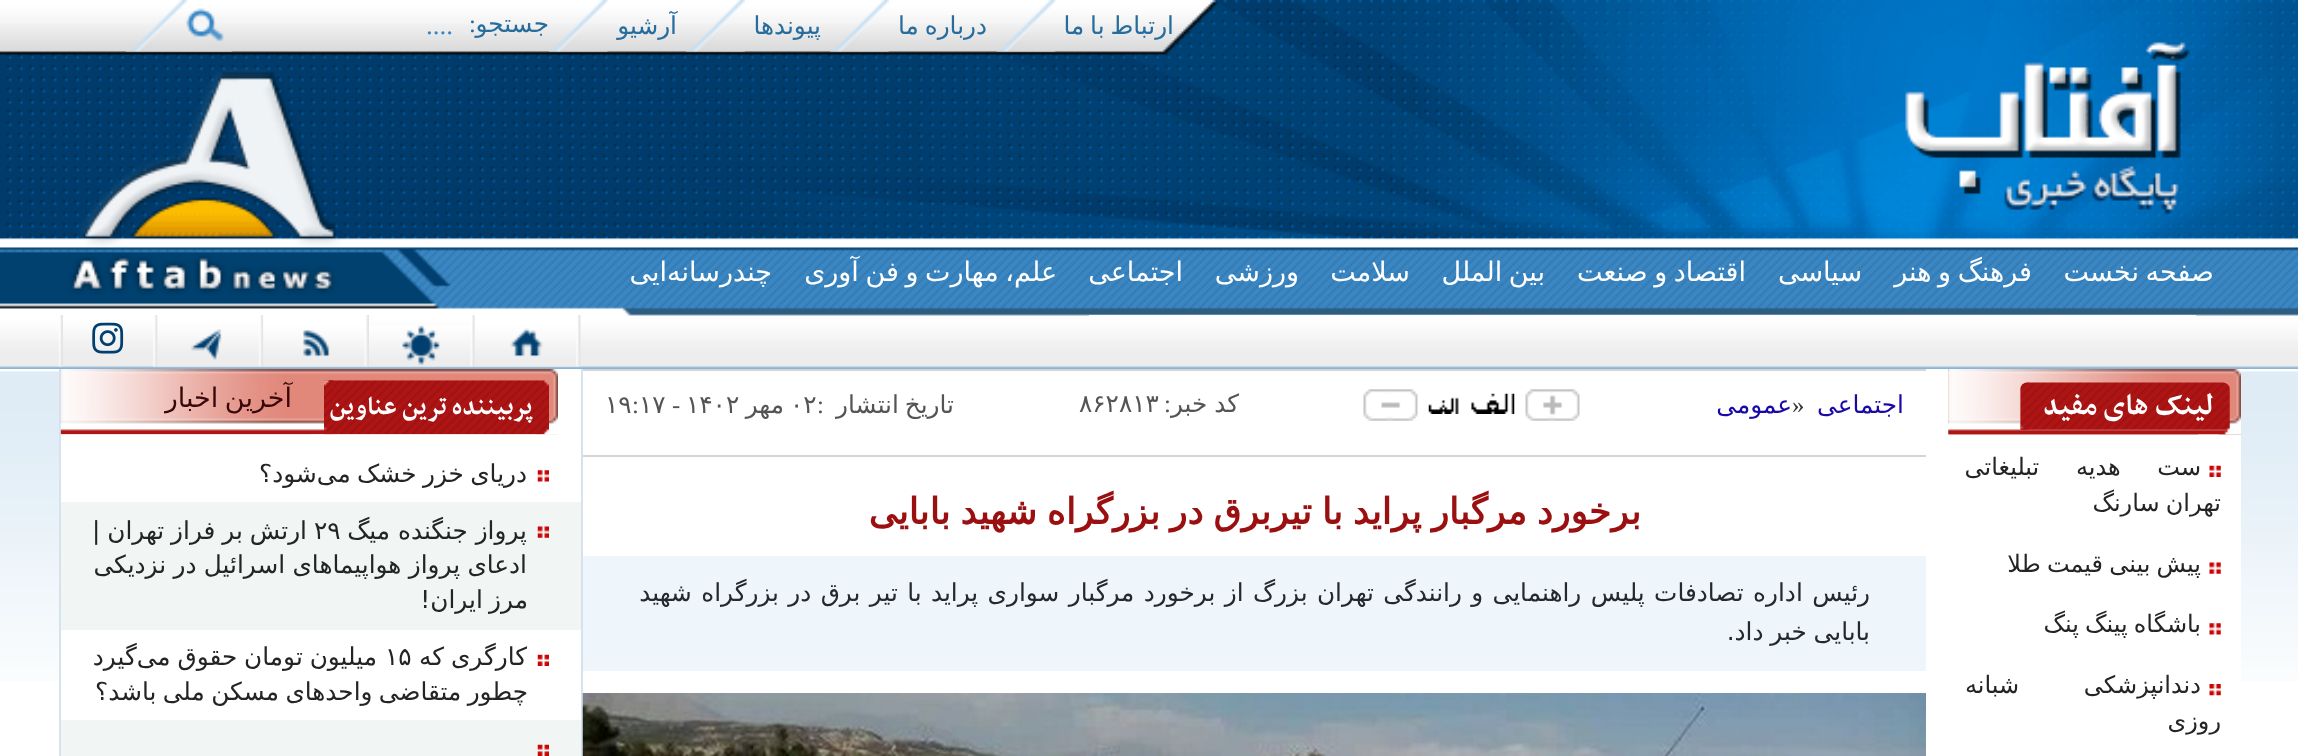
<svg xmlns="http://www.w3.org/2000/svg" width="2298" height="756">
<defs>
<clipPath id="clip1"><rect x="1080" y="389" width="160" height="32"/></clipPath>
<clipPath id="clip2"><rect x="164" y="380" width="142" height="36"/></clipPath>
</defs>
<rect width="100%" height="100%" fill="#fff"/>
<image x="0" y="0" width="2298" height="369" href="media/1.png"/>
<text x="1174" y="34" word-spacing="-2" style="font-family:DejaVu Sans;font-size:24.75px;direction:rtl;fill:#266c9d">ارتباط با ما</text>
<image x="996" y="0" width="60" height="52" href="media/2.png"/>
<text x="987" y="34" word-spacing="-2" style="font-family:DejaVu Sans;font-size:24.75px;direction:rtl;fill:#266c9d">درباره ما</text>
<image x="830" y="0" width="59" height="52" href="media/3.png"/>
<text x="821" y="34" style="font-family:DejaVu Sans;font-size:24.75px;direction:rtl;fill:#266c9d">پیوندها</text>
<image x="686" y="0" width="59" height="52" href="media/4.png"/>
<text x="677" y="34" style="font-family:DejaVu Sans;font-size:24.75px;direction:rtl;fill:#266c9d">آرشیو</text>
<image x="549" y="0" width="59" height="52" href="media/5.png"/>
<text x="549" y="32" style="font-family:DejaVu Sans;font-size:24.75px;direction:rtl;fill:#266c9d">جستجو</text>
<text x="476" y="32" style="font-family:Liberation Serif;font-size:24.75px;direction:rtl;fill:#266c9d">:</text>
<text x="426" y="34" style="font-family:Liberation Serif;font-size:27px;fill:#3586c7">....</text>
<image x="126" y="0" width="106" height="52" href="media/6.png"/>
<text x="2214" y="281" word-spacing="-2" style="font-family:DejaVu Sans;font-size:27px;direction:rtl;fill:#fff">صفحه نخست</text>
<text x="2032" y="281" word-spacing="-2" style="font-family:DejaVu Sans;font-size:27px;direction:rtl;fill:#fff">فرهنگ و هنر</text>
<text x="1862" y="281" style="font-family:DejaVu Sans;font-size:27px;direction:rtl;fill:#fff">سیاسی</text>
<text x="1746" y="281" word-spacing="-2" style="font-family:DejaVu Sans;font-size:27px;direction:rtl;fill:#fff">اقتصاد و صنعت</text>
<text x="1545" y="281" word-spacing="-2" style="font-family:DejaVu Sans;font-size:27px;direction:rtl;fill:#fff">بین الملل</text>
<text x="1410" y="281" style="font-family:DejaVu Sans;font-size:27px;direction:rtl;fill:#fff">سلامت</text>
<text x="1299" y="281" style="font-family:DejaVu Sans;font-size:27px;direction:rtl;fill:#fff">ورزشی</text>
<text x="1183" y="281" style="font-family:DejaVu Sans;font-size:27px;direction:rtl;fill:#fff">اجتماعی</text>
<text x="1057" y="281" word-spacing="-2" style="font-family:DejaVu Sans;font-size:27px;direction:rtl;fill:#fff">علم، مهارت و فن آوری</text>
<text x="772" y="281" style="font-family:DejaVu Sans;font-size:27px;direction:rtl;fill:#fff">چندرسانه</text>
<text x="667" y="281" style="font-family:DejaVu Sans;font-size:27px;direction:rtl;fill:#fff">ایی</text>
<rect x="1089" y="315" width="1107" height="1" fill="#fff"/>
<image x="1864" y="330" width="287" height="26" href="media/7.png"/>
<image x="576" y="315" width="5" height="52" href="media/8.png"/>
<image x="369" y="325" width="102" height="42" href="media/11.png"/>
<image x="470" y="315" width="5" height="52" href="media/10.png"/>
<image x="474" y="315" width="102" height="52" href="media/9.png"/>
<image x="153" y="315" width="5" height="52" href="media/8.png"/>
<image x="157" y="315" width="102" height="52" href="media/15.png"/>
<image x="258" y="315" width="6" height="52" href="media/14.png"/>
<image x="263" y="315" width="102" height="52" href="media/13.png"/>
<image x="364" y="315" width="5" height="52" href="media/12.png"/>
<image x="92" y="322" width="32" height="32" href="media/16.png"/>
<image x="58" y="315" width="5" height="52" href="media/17.png"/>
<image x="0" y="371" width="2298" height="310" href="media/18.png"/>
<rect x="61" y="371" width="2180" height="310" fill="#fff"/>
<image x="1948" y="369" width="293" height="66" href="media/19.png"/>
<image x="2020" y="382" width="210" height="48" href="media/20.png"/>
<text x="2214" y="414" style="font-family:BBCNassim;font-size:33.75px;font-weight:bold;direction:rtl;fill:#fff">لینک های مفید</text>
<image x="2209" y="465" width="12" height="12" href="media/21.png"/>
<text x="2201" y="475" word-spacing="29" style="font-family:DejaVu Sans;font-size:24px;direction:rtl;fill:#232524">ست هدیه تبلیغاتی</text>
<text x="2221" y="511" word-spacing="-1.5" style="font-family:DejaVu Sans;font-size:24px;direction:rtl;fill:#232524">تهران سارنگ</text>
<image x="2209" y="562" width="12" height="12" href="media/22.png"/>
<text x="2201" y="572" word-spacing="-1.5" style="font-family:DejaVu Sans;font-size:24px;direction:rtl;fill:#232524">پیش بینی قیمت طلا</text>
<image x="2209" y="623" width="12" height="12" href="media/23.png"/>
<text x="2201" y="632" word-spacing="-1.5" style="font-family:DejaVu Sans;font-size:24px;direction:rtl;fill:#232524">باشگاه پینگ پنگ</text>
<image x="2209" y="684" width="12" height="12" href="media/24.png"/>
<text x="2201" y="693" word-spacing="57" style="font-family:DejaVu Sans;font-size:24px;direction:rtl;fill:#232524">دندانپزشکی شبانه</text>
<text x="2221" y="729" style="font-family:DejaVu Sans;font-size:24px;direction:rtl;fill:#232524">روزی</text>
<rect x="581" y="369" width="2" height="387" fill="#d6e3ec"/>
<rect x="583" y="369" width="1343" height="2" fill="#d5d5d5"/>
<rect x="583" y="455" width="1343" height="2" fill="#d5d5d5"/>
<text x="1904" y="413" style="font-family:DejaVu Sans;font-size:24.75px;direction:rtl;fill:#1809a6">اجتماعی</text>
<text x="1792" y="413" style="font-family:Liberation Serif;font-size:24.75px;fill:#333">»</text>
<text x="1792" y="413" style="font-family:DejaVu Sans;font-size:24.75px;direction:rtl;fill:#1809a6">عمومی</text>
<image x="1525" y="389" width="55" height="32" href="media/25.png"/>
<image x="1428" y="393" width="87" height="21" href="media/26.png"/>
<image x="1363" y="389" width="55" height="32" href="media/27.png"/>
<g clip-path="url(#clip1)">
<text x="1239" y="412" word-spacing="-1" style="font-family:DejaVu Sans;font-size:24.75px;direction:rtl;fill:#545454">کد خبر</text>
</g>
<text x="1171" y="412" style="font-family:Liberation Serif;font-size:24.75px;direction:rtl;fill:#545454">:</text>
<text x="1079" y="412" style="font-family:DejaVu Sans;font-size:24.75px;fill:#545454">۸۶۲۸۱۳</text>
<text x="954" y="413" word-spacing="-2" style="font-family:DejaVu Sans;font-size:24.75px;direction:rtl;fill:#545454">تاریخ انتشار</text>
<text x="817" y="413" style="font-family:Liberation Serif;font-size:24.75px;fill:#545454">:</text>
<text x="790" y="413" style="font-family:DejaVu Sans;font-size:24.75px;fill:#545454">۰۲</text>
<text x="784" y="413" style="font-family:DejaVu Sans;font-size:24.75px;direction:rtl;fill:#545454">مهر</text>
<text x="686" y="413" style="font-family:DejaVu Sans;font-size:24.75px;fill:#545454">۱۴۰۲</text>
<text x="672" y="413" style="font-family:Liberation Serif;font-size:24.75px;fill:#545454">-</text>
<text x="639" y="413" style="font-family:DejaVu Sans;font-size:24.75px;fill:#545454">۱۷</text>
<text x="632" y="413" style="font-family:Liberation Serif;font-size:24.75px;fill:#545454">:</text>
<text x="605" y="413" style="font-family:DejaVu Sans;font-size:24.75px;fill:#545454">۱۹</text>
<text x="1641" y="524" word-spacing="-1.5" style="font-family:DejaVu Sans;font-size:36px;font-weight:bold;direction:rtl;fill:#9a1010">برخورد مرگبار پراید با تیربرق در بزرگراه شهید بابایی</text>
<rect x="583" y="556" width="1343" height="115" fill="#eef5fb"/>
<text x="1870" y="601" word-spacing="1.5" style="font-family:DejaVu Sans;font-size:24.75px;direction:rtl;fill:#24292d">رئیس اداره تصادفات پلیس راهنمایی و رانندگی تهران بزرگ از برخورد مرگبار سواری پراید با تیر برق در بزرگراه شهید</text>
<text x="1870" y="640" word-spacing="-1" style="font-family:DejaVu Sans;font-size:24.75px;direction:rtl;fill:#24292d">بابایی خبر داد.</text>
<image x="582" y="693" width="1344" height="63" href="media/28.png"/>
<rect x="59" y="369" width="2" height="387" fill="#d6e3ec"/>
<image x="60" y="369" width="498" height="66" href="media/29.png"/>
<image x="324" y="380" width="225" height="55" href="media/30.png"/>
<text x="533" y="414" style="font-family:BBCNassim;font-size:29.25px;font-weight:bold;direction:rtl;fill:#fff">پربیننده ترین عناوین</text>
<g clip-path="url(#clip2)">
<text x="292" y="407" word-spacing="-2" style="font-family:DejaVu Sans;font-size:27px;direction:rtl;fill:#38070a">آخرین اخبار</text>
</g>
<image x="537" y="470" width="12" height="12" href="media/31.png"/>
<text x="527" y="482" word-spacing="-1.5" style="font-family:DejaVu Sans;font-size:24.75px;direction:rtl;fill:#232524">دریای خزر خشک می‌شود؟</text>
<rect x="61" y="502" width="520" height="128" fill="#f1f5f4"/>
<image x="537" y="526" width="12" height="12" href="media/32.png"/>
<text x="527" y="539" style="font-family:DejaVu Sans;font-size:24.75px;direction:rtl;fill:#232524">پرواز جنگنده میگ</text>
<text x="314" y="539" style="font-family:DejaVu Sans;font-size:24.75px;fill:#232524">۲۹</text>
<text x="307" y="539" word-spacing="-1" style="font-family:DejaVu Sans;font-size:24.75px;direction:rtl;fill:#232524">ارتش بر فراز تهران |</text>
<text x="527" y="573" word-spacing="-0.5" style="font-family:DejaVu Sans;font-size:24.75px;direction:rtl;fill:#232524">ادعای پرواز هواپیماهای اسرائیل در نزدیکی</text>
<text x="528" y="608" word-spacing="-1.5" style="font-family:DejaVu Sans;font-size:24.75px;direction:rtl;fill:#232524">مرز ایران!</text>
<image x="537" y="654" width="12" height="12" href="media/33.png"/>
<text x="527" y="665" word-spacing="-1" style="font-family:DejaVu Sans;font-size:24.75px;direction:rtl;fill:#232524">کارگری که</text>
<text x="385" y="665" style="font-family:DejaVu Sans;font-size:24.75px;fill:#232524">۱۵</text>
<text x="377" y="665" word-spacing="-1" style="font-family:DejaVu Sans;font-size:24.75px;direction:rtl;fill:#232524">میلیون تومان حقوق می‌گیرد</text>
<text x="528" y="700" word-spacing="-1.5" style="font-family:DejaVu Sans;font-size:24.75px;direction:rtl;fill:#232524">چطور متقاضی واحدهای مسکن ملی باشد؟</text>
<rect x="61" y="720" width="520" height="36" fill="#f1f5f4"/>
<image x="537" y="744" width="12" height="12" href="media/34.png"/>
</svg>
